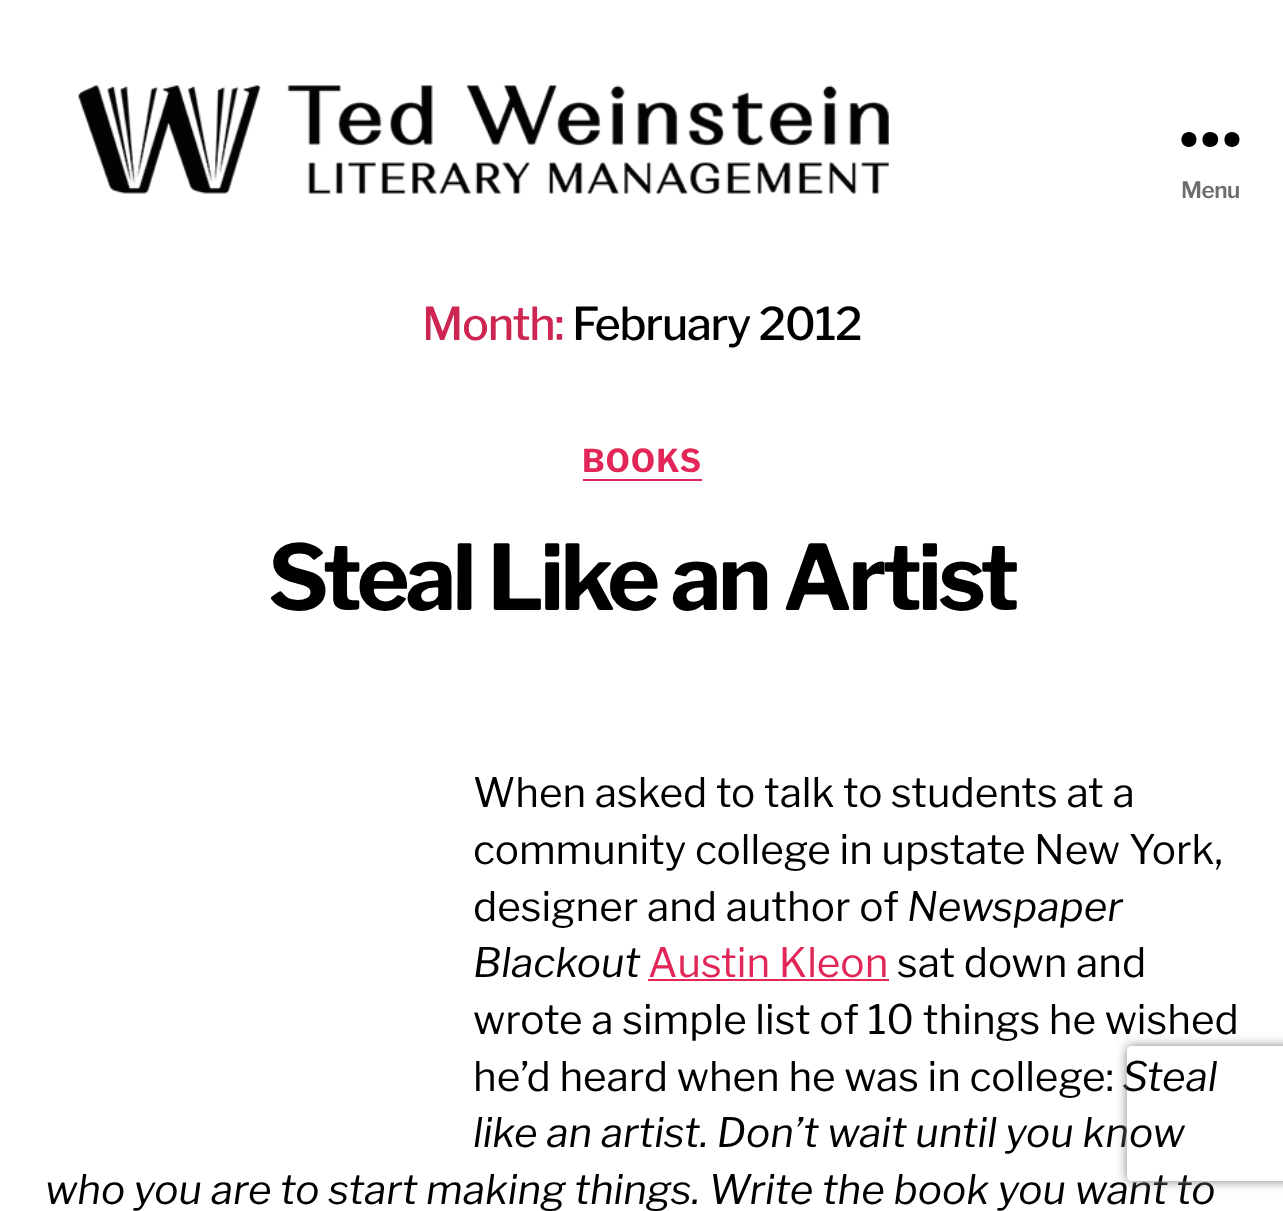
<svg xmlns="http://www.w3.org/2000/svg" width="1283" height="1211">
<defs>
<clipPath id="clip1"><path d="M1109 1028h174v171h-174zm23 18h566c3 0 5 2 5 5v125c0 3-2 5-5 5h-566c-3 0-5-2-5-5v-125c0-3 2-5 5-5z" clip-rule="evenodd"/></clipPath>
</defs>
<rect width="100%" height="100%" fill="#fff"/>
<image x="78" y="85" width="811" height="109" href="media/1.png"/>
<path d="M1189 147c-10 0-10-15 0-15c10 0 10 15 0 15zm21 0c-10 0-10-15 0-15c11 0 11 15 0 15zm22 0c-10 0-10-15 0-15c10 0 10 15 0 15z" fill="#000" fill-rule="evenodd"/>
<text x="1181" y="198" style="font-family:Libre Franklin;font-size:22.5px;font-weight:600;letter-spacing:-0.5px;fill:#6d6d6d">Menu</text>
<text x="422" y="340" style="font-family:Libre Franklin;font-size:45px;font-weight:500;letter-spacing:-1.25px;fill:#cd2653">Month:</text>
<text x="572" y="340" style="font-family:Libre Franklin;font-size:45px;font-weight:500;letter-spacing:-1.25px;fill:#000">February 2012</text>
<rect x="583" y="479" width="119" height="2" fill="#e22658"/>
<text x="582" y="472" style="font-family:Libre Franklin;font-size:31.5px;font-weight:bold;letter-spacing:1px;fill:#e22658">BOOKS</text>
<text x="268" y="610" style="font-family:Libre Franklin;font-size:90px;font-weight:bold;letter-spacing:-3.75px;fill:#000">Steal Like an Artist</text>
<text x="473" y="807" style="font-family:Libre Franklin;font-size:40.5px;fill:#000">When asked to talk to students at a</text>
<text x="473" y="864" style="font-family:Libre Franklin;font-size:40.5px;fill:#000">community college in upstate New York,</text>
<text x="473" y="921" style="font-family:Libre Franklin;font-size:40.5px;fill:#000">designer and author of</text>
<text x="907" y="921" style="font-family:Libre Franklin;font-size:40.5px;font-style:italic;fill:#000">Newspaper</text>
<text x="473" y="977" style="font-family:Libre Franklin;font-size:40.5px;font-style:italic;fill:#000">Blackout</text>
<text x="648" y="977" style="font-family:Libre Franklin;font-size:40.5px;fill:#e22658">Austin Kleon</text>
<rect x="648" y="979" width="241" height="2" fill="#e22658"/>
<text x="897" y="977" style="font-family:Libre Franklin;font-size:40.5px;fill:#000">sat down and</text>
<text x="473" y="1034" style="font-family:Libre Franklin;font-size:40.5px;fill:#000">wrote a simple list of 10 things he wished</text>
<text x="473" y="1091" style="font-family:Libre Franklin;font-size:40.5px;fill:#000">he’d heard when he was in college:</text>
<text x="1122" y="1091" style="font-family:Libre Franklin;font-size:40.5px;font-style:italic;fill:#000">Steal</text>
<text x="473" y="1147" style="font-family:Libre Franklin;font-size:40.5px;font-style:italic;fill:#000">like an artist. Don’t wait until you know</text>
<text x="45" y="1204" style="font-family:Libre Franklin;font-size:40.5px;font-style:italic;fill:#000">who you are to start making things. Write the book you want to</text>
<g clip-path="url(#clip1)">
<rect x="1127" y="1046" width="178" height="135" rx="5" fill="#808080" filter="blur(5.5px)"/>
</g>
</svg>
